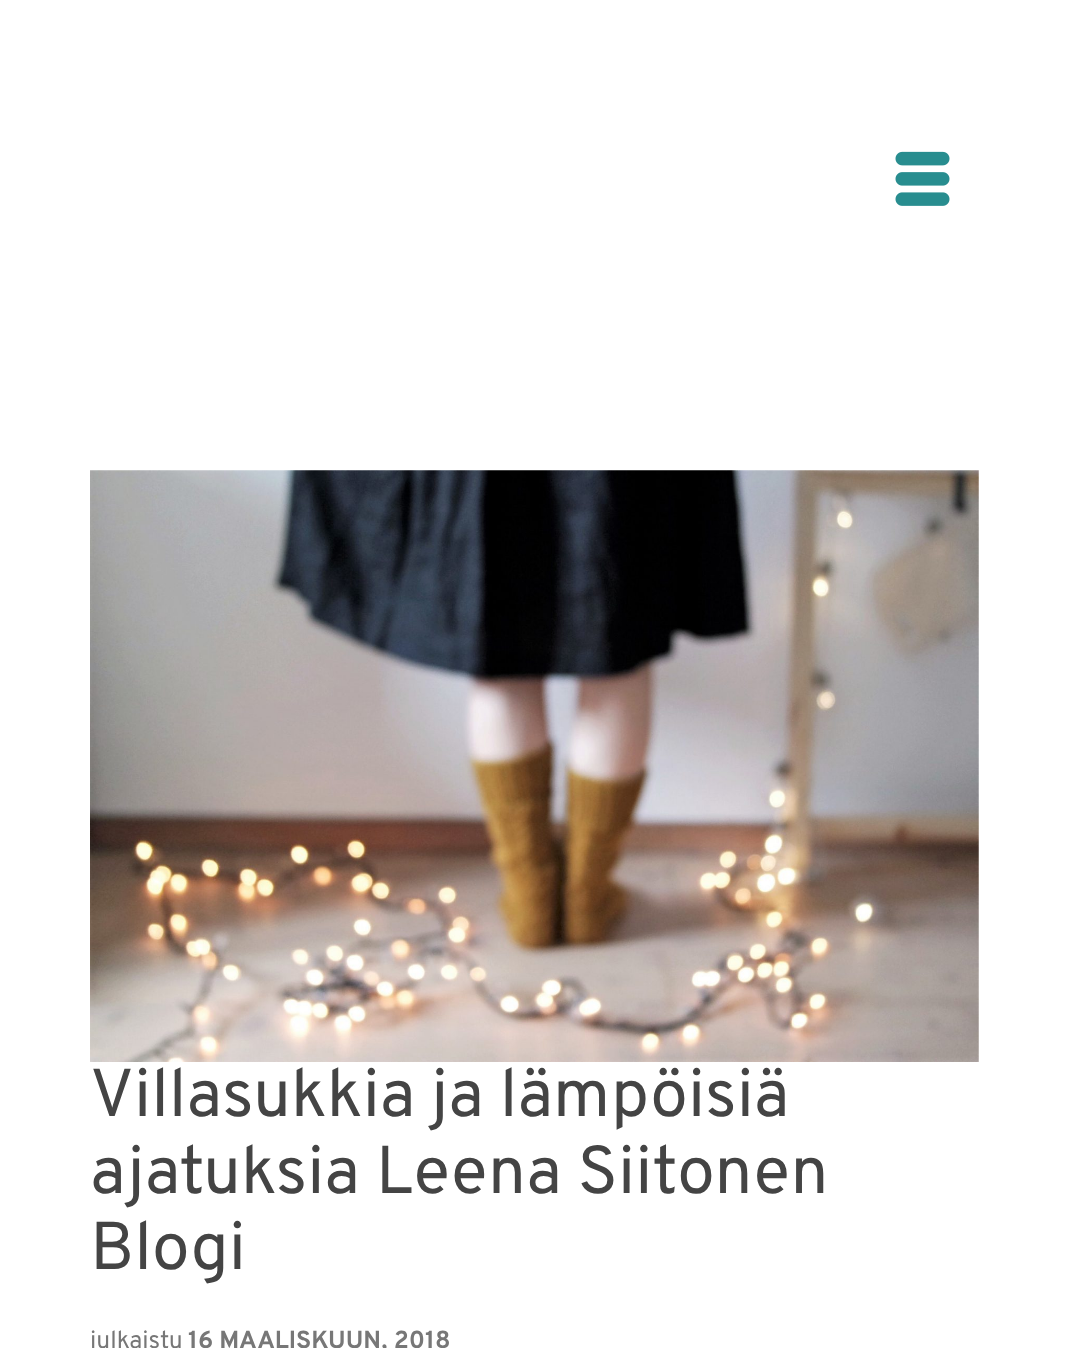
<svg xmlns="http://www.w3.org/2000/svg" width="1068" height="1348">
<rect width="100%" height="100%" fill="#fff"/>
<image x="895" y="151" width="55" height="55" href="media/1.png"/>
<image x="90" y="470" width="889" height="592" href="media/2.png"/>
<text x="90" y="1116" style="font-family:Overpass;font-size:67.5px;fill:#444">Villasukkia ja lämpöisiä</text>
<text x="90" y="1193" style="font-family:Overpass;font-size:67.5px;fill:#444">ajatuksia Leena Siitonen</text>
<text x="90" y="1269" style="font-family:Overpass;font-size:67.5px;fill:#444">Blogi</text>
<text x="90" y="1348" style="font-family:Overpass;font-size:24.75px;fill:#777">julkaistu</text>
<text x="188" y="1348" style="font-family:Overpass;font-size:24.75px;font-weight:bold;fill:#777">16 MAALISKUUN, 2018</text>
</svg>
